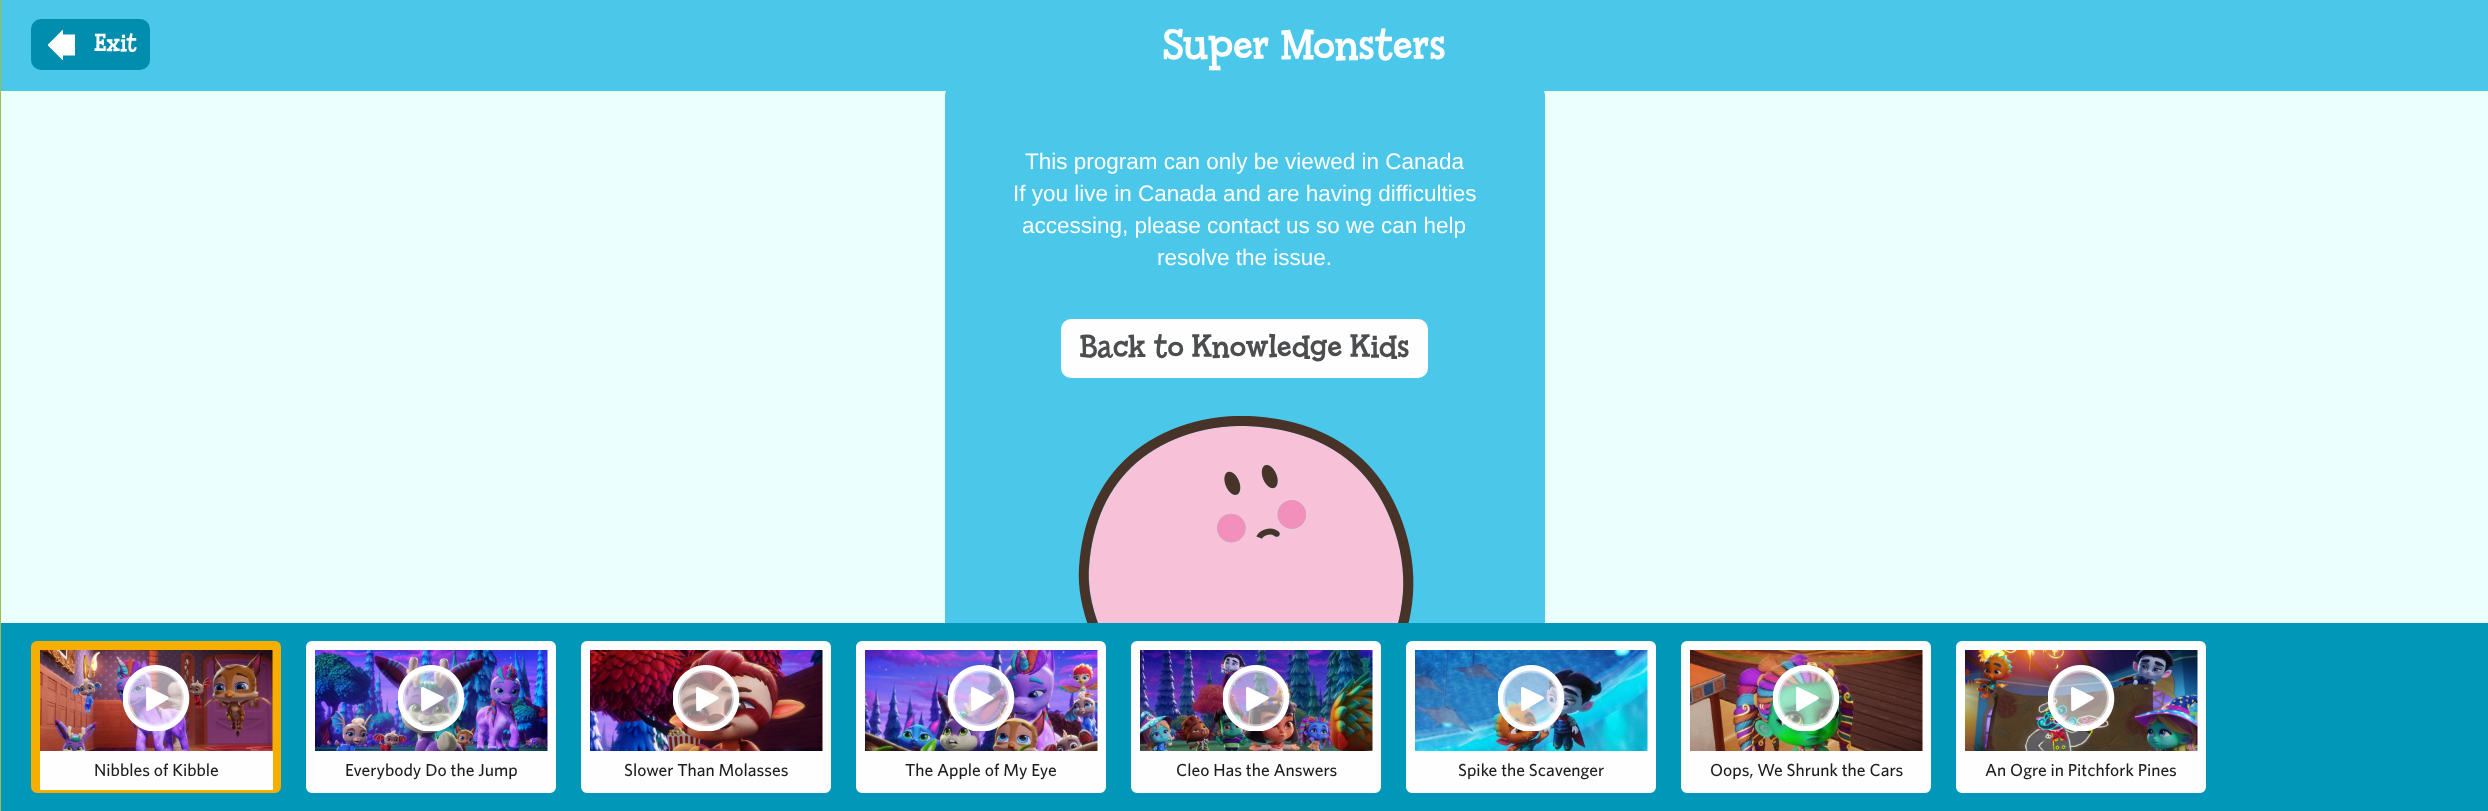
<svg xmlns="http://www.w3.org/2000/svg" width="2488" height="811">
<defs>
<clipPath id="clip1"><rect x="48" y="30" width="27" height="30"/></clipPath>
</defs>
<rect width="100%" height="100%" fill="#ebffff"/>
<rect width="1" height="811" fill="#9ebd4c"/>
<rect x="945" y="85" width="600" height="550" rx="10" fill="#4ac7e9"/>
<rect x="1" width="2487" height="91" fill="#4ac7e9"/>
<rect x="31" y="19" width="119" height="51" rx="10" fill="#008dae"/>
<g clip-path="url(#clip1)">
<path d="M63 55.5v5l-15.5-15.5l15.5-15.5v5h12.5v21z" fill="#fff"/>
</g>
<text x="94" y="51" style="font-family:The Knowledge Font;font-size:26px;fill:#fefefe">Exit</text>
<text x="1162" y="59" style="font-family:The Knowledge Font;font-size:45px;fill:#fefefe">Super Monsters</text>
<text x="1025" y="169" style="font-family:Liberation Sans;font-size:22.5px;fill:#fefefe">This program can only be viewed in Canada</text>
<text x="1013" y="201" style="font-family:Liberation Sans;font-size:22.5px;fill:#fefefe">If you live in Canada and are having difficulties</text>
<text x="1022" y="233" style="font-family:Liberation Sans;font-size:22.5px;fill:#fefefe">accessing, please contact us so we can help</text>
<text x="1157" y="265" style="font-family:Liberation Sans;font-size:22.5px;fill:#fefefe">resolve the issue.</text>
<rect x="1061" y="319" width="367" height="59" rx="10" fill="#fefefe"/>
<text x="1080" y="357" style="font-family:The Knowledge Font;font-size:33.75px;fill:#4c4d4f">Back to Knowledge Kids</text>
<image x="1078" y="416" width="336" height="207" href="media/1.png"/>
<rect x="1" y="623" width="2487" height="188" fill="#0097b8"/>
<rect x="35.5" y="645.5" width="241" height="143" rx="1.5" fill="none" stroke="#f6af00" stroke-width="9"/>
<image x="40" y="650" width="233" height="101" href="media/2.png"/>
<image x="123" y="665" width="67" height="66" href="media/3.png"/>
<rect x="40" y="751" width="233" height="39" fill="#fefefe"/>
<text x="94" y="776" style="font-family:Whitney;font-size:17.5px;font-weight:500;fill:#1e1e1e">Nibbles of Kibble</text>
<rect x="310.5" y="645.5" width="241" height="143" rx="1.5" fill="none" stroke="#fefefe" stroke-width="9"/>
<image x="315" y="650" width="233" height="101" href="media/4.png"/>
<image x="398" y="665" width="67" height="66" href="media/5.png"/>
<rect x="315" y="751" width="232" height="33" fill="#fefefe"/>
<text x="345" y="776" style="font-family:Whitney;font-size:17.5px;font-weight:500;fill:#1e1e1e">Everybody Do the Jump</text>
<rect x="585.5" y="645.5" width="241" height="143" rx="1.5" fill="none" stroke="#fefefe" stroke-width="9"/>
<image x="590" y="650" width="233" height="101" href="media/6.png"/>
<image x="673" y="665" width="67" height="66" href="media/7.png"/>
<rect x="590" y="751" width="232" height="33" fill="#fefefe"/>
<text x="624" y="776" style="font-family:Whitney;font-size:17.5px;font-weight:500;fill:#1e1e1e">Slower Than Molasses</text>
<rect x="860.5" y="645.5" width="241" height="143" rx="1.5" fill="none" stroke="#fefefe" stroke-width="9"/>
<image x="865" y="650" width="233" height="101" href="media/8.png"/>
<image x="948" y="665" width="67" height="66" href="media/9.png"/>
<rect x="865" y="751" width="232" height="33" fill="#fefefe"/>
<text x="905" y="776" style="font-family:Whitney;font-size:17.5px;font-weight:500;fill:#1e1e1e">The Apple of My Eye</text>
<rect x="1135.5" y="645.5" width="241" height="143" rx="1.5" fill="none" stroke="#fefefe" stroke-width="9"/>
<image x="1140" y="650" width="233" height="101" href="media/10.png"/>
<image x="1223" y="665" width="67" height="66" href="media/11.png"/>
<rect x="1140" y="751" width="232" height="33" fill="#fefefe"/>
<text x="1176" y="776" style="font-family:Whitney;font-size:17.5px;font-weight:500;fill:#1e1e1e">Cleo Has the Answers</text>
<rect x="1410.5" y="645.5" width="241" height="143" rx="1.5" fill="none" stroke="#fefefe" stroke-width="9"/>
<image x="1415" y="650" width="233" height="101" href="media/12.png"/>
<image x="1498" y="665" width="67" height="66" href="media/13.png"/>
<rect x="1415" y="751" width="232" height="33" fill="#fefefe"/>
<text x="1458" y="776" style="font-family:Whitney;font-size:17.5px;font-weight:500;fill:#1e1e1e">Spike the Scavenger</text>
<rect x="1685.5" y="645.5" width="241" height="143" rx="1.5" fill="none" stroke="#fefefe" stroke-width="9"/>
<image x="1690" y="650" width="233" height="101" href="media/14.png"/>
<image x="1773" y="665" width="67" height="66" href="media/15.png"/>
<rect x="1690" y="751" width="232" height="33" fill="#fefefe"/>
<text x="1710" y="776" style="font-family:Whitney;font-size:17.5px;font-weight:500;fill:#1e1e1e">Oops, We Shrunk the Cars</text>
<rect x="1960.5" y="645.5" width="241" height="143" rx="1.5" fill="none" stroke="#fefefe" stroke-width="9"/>
<image x="1965" y="650" width="233" height="101" href="media/16.png"/>
<image x="2048" y="665" width="67" height="66" href="media/17.png"/>
<rect x="1965" y="751" width="232" height="33" fill="#fefefe"/>
<text x="1985" y="776" style="font-family:Whitney;font-size:17.5px;font-weight:500;fill:#1e1e1e">An Ogre in Pitchfork Pines</text>
</svg>
